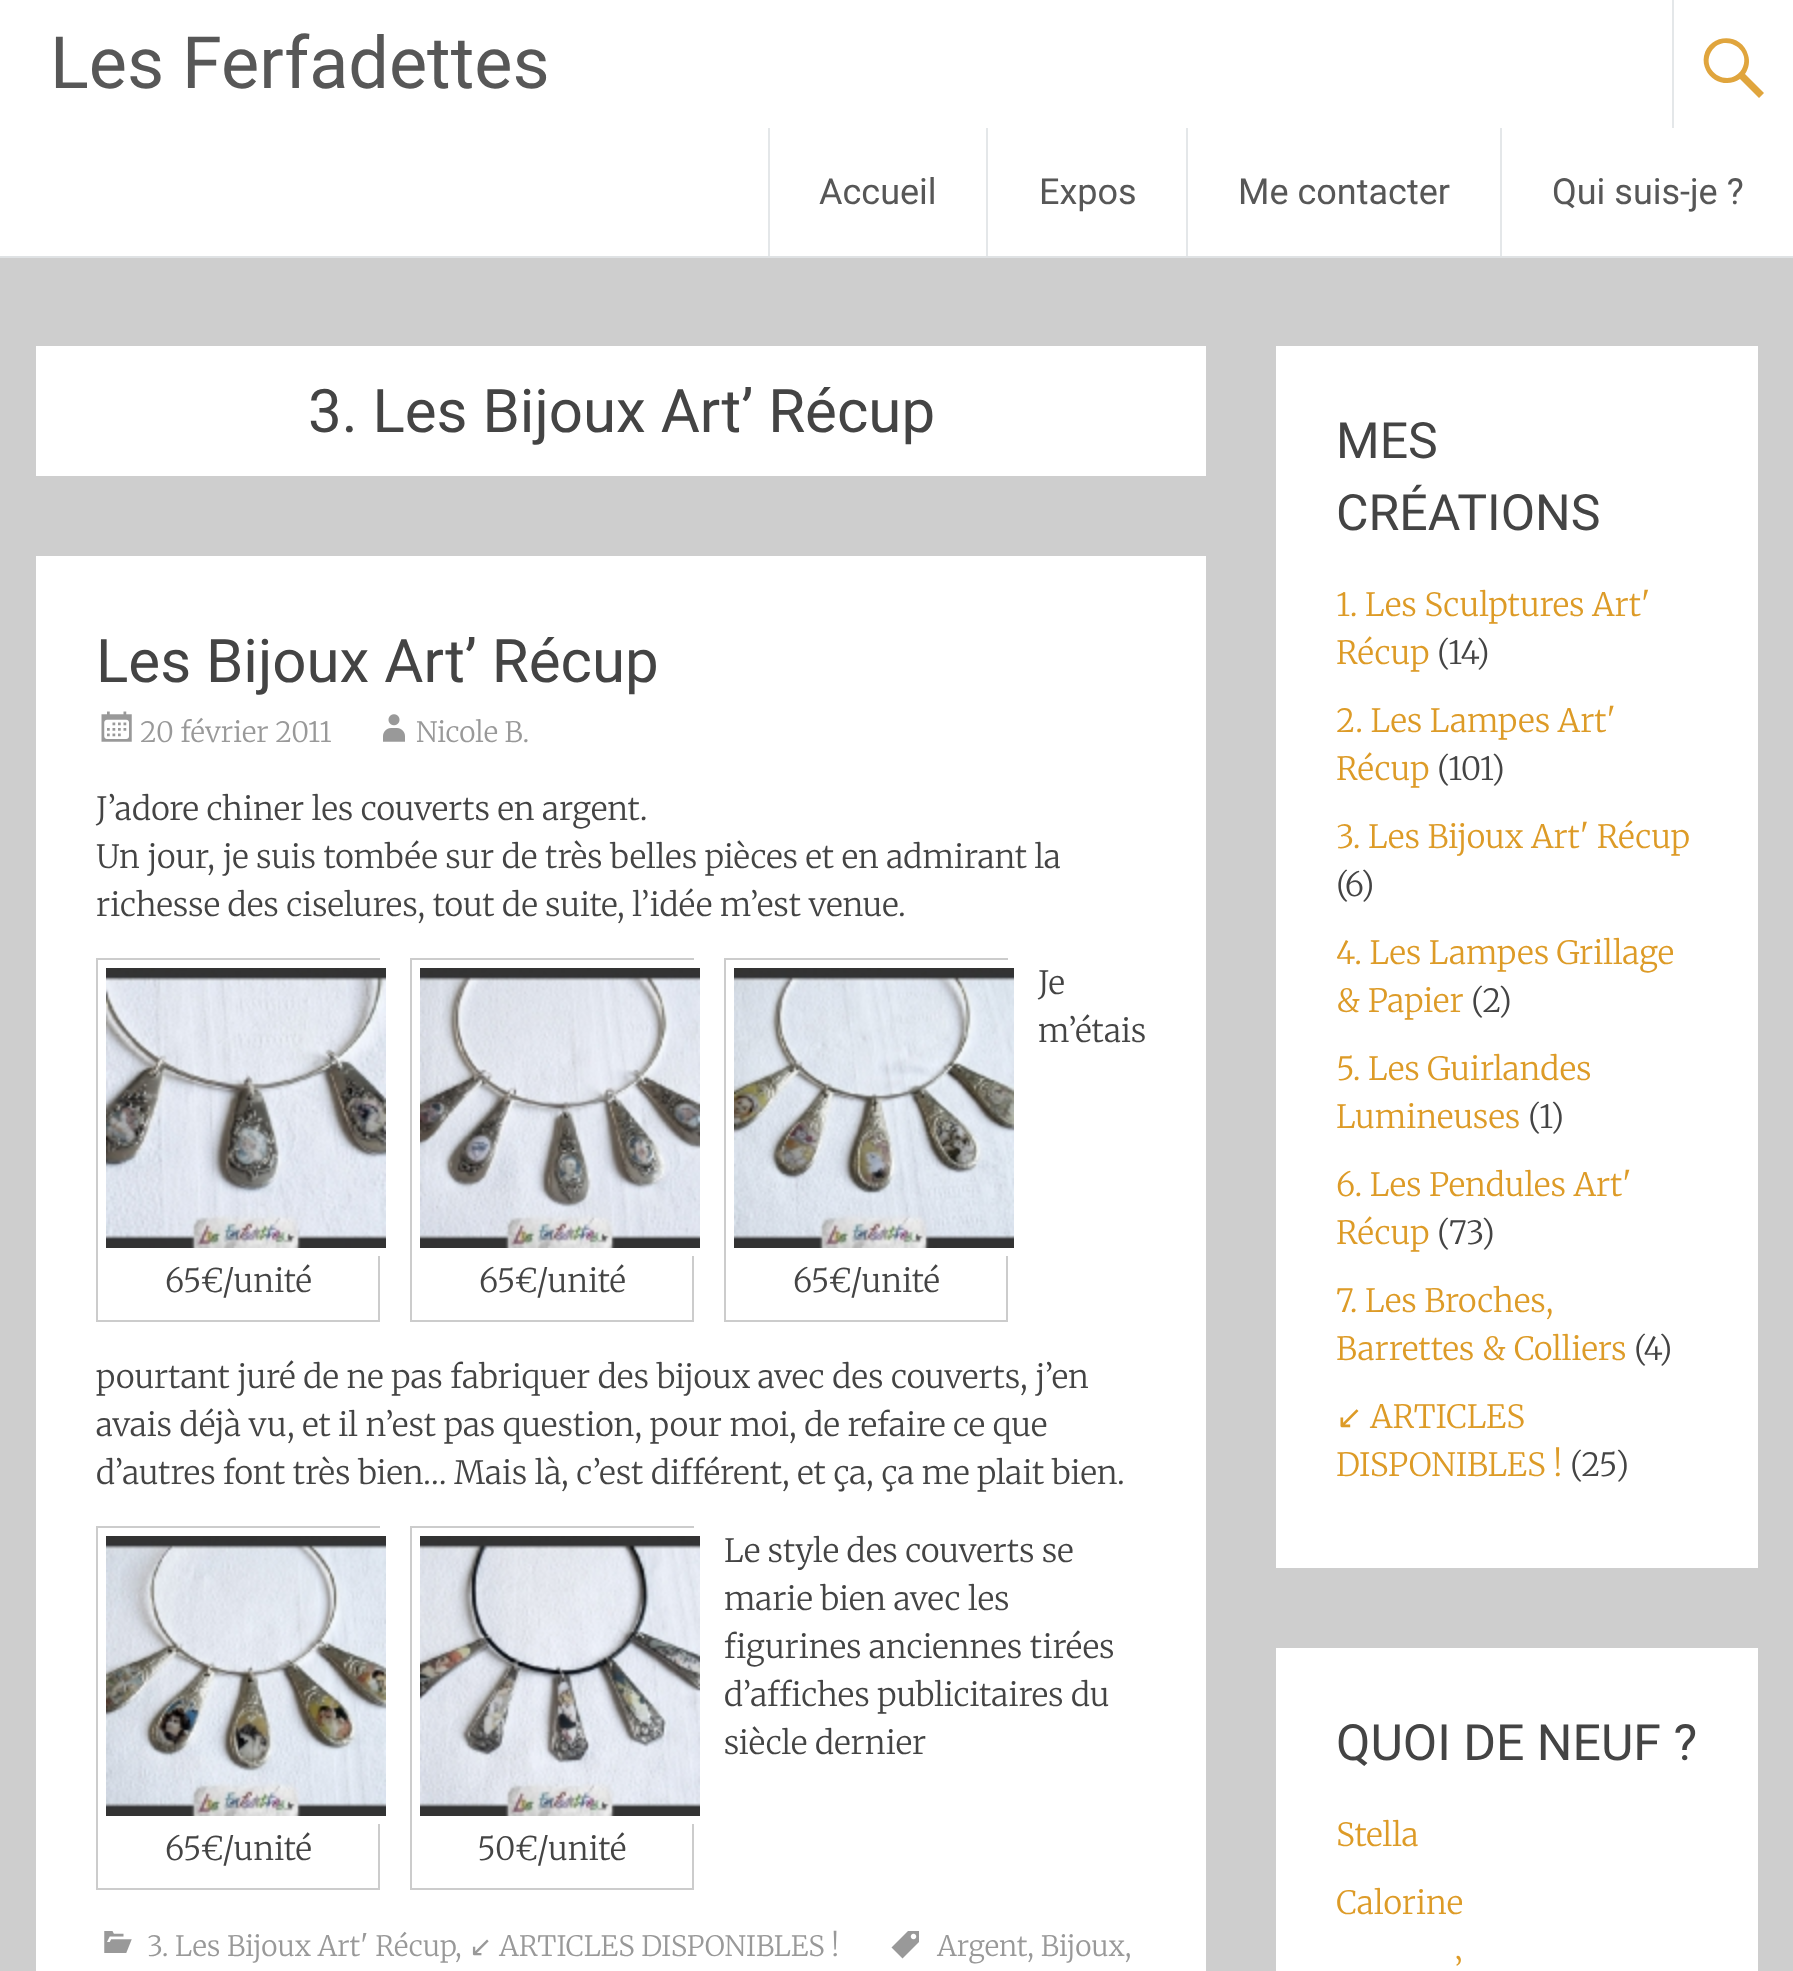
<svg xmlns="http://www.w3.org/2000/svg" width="1793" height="1971">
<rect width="100%" height="100%" fill="#fff"/>
<rect y="256" width="1793" height="2" fill="#dfe2e4"/>
<text x="50" y="88" style="font-family:Roboto;font-size:72px;fill:#575757">Les Ferfadettes</text>
<rect x="1672" width="2" height="128" fill="#e4e7e9"/>
<path d="M1764 93l-5 5l-19-19c-11 8-28 4-34-9c-2-4-3-9-2-14c5-23 38-24 44-1c2 6 1 13-3 19zm-53-41c-11 20 19 37 31 17c11-20-19-37-31-17z" fill="#e0a53d"/>
<rect x="768" y="128" width="2" height="128" fill="#e4e7e9"/>
<text x="819" y="204" style="font-family:Roboto;font-size:36px;fill:#575757">Accueil</text>
<rect x="986" y="128" width="2" height="128" fill="#e4e7e9"/>
<text x="1039" y="204" style="font-family:Roboto;font-size:36px;fill:#575757">Expos</text>
<rect x="1186" y="128" width="2" height="128" fill="#e4e7e9"/>
<text x="1238" y="204" style="font-family:Roboto;font-size:36px;fill:#575757">Me contacter</text>
<rect x="1500" y="128" width="2" height="128" fill="#e4e7e9"/>
<text x="1552" y="204" style="font-family:Roboto;font-size:36px;fill:#575757">Qui suis-je ?</text>
<rect y="258" width="1793" height="1713" fill="#cecece"/>
<rect x="36" y="346" width="1170" height="130" fill="#fff"/>
<text x="308" y="432" style="font-family:Roboto;font-size:60px;fill:#444">3. Les Bijoux Art’ Récup</text>
<rect x="36" y="556" width="1170" height="1415" fill="#fff"/>
<text x="96" y="682" style="font-family:Roboto;font-size:60px;fill:#444">Les Bijoux Art’ Récup</text>
<image x="101" y="711" width="31" height="31" href="media/1.png"/>
<text x="140" y="742" style="font-family:Merriweather;font-size:28px;font-weight:300;fill:#999">20 février 2011</text>
<image x="383" y="714" width="22" height="28" href="media/2.png"/>
<text x="416" y="742" style="font-family:Merriweather;font-size:28px;font-weight:300;fill:#999">Nicole B.</text>
<text x="96" y="820" style="font-family:Merriweather;font-size:32px;font-weight:300;fill:#444">J’adore chiner les couverts en argent.</text>
<text x="96" y="868" style="font-family:Merriweather;font-size:32px;font-weight:300;fill:#444">Un jour, je suis tombée sur de très belles pièces et en admirant la</text>
<text x="96" y="916" style="font-family:Merriweather;font-size:32px;font-weight:300;fill:#444">richesse des ciselures, tout de suite, l’idée m’est venue.</text>
<text x="1038" y="994" style="font-family:Merriweather;font-size:32px;font-weight:300;fill:#444">Je</text>
<text x="1038" y="1042" style="font-family:Merriweather;font-size:32px;font-weight:300;fill:#444">m’étais</text>
<text x="96" y="1388" style="font-family:Merriweather;font-size:32px;font-weight:300;fill:#444">pourtant juré de ne pas fabriquer des bijoux avec des couverts, j’en</text>
<text x="96" y="1436" style="font-family:Merriweather;font-size:32px;font-weight:300;fill:#444">avais déjà vu, et il n’est pas question, pour moi, de refaire ce que</text>
<text x="96" y="1484" style="font-family:Merriweather;font-size:32px;font-weight:300;fill:#444">d’autres font très bien… Mais là, c’est différent, et ça, ça me plait bien.</text>
<rect x="97" y="959" width="282" height="362" fill="none" stroke="#ccc" stroke-width="2"/>
<rect x="378" y="960" width="2" height="296" fill="#fff"/>
<image x="106" y="968" width="280" height="280" href="media/3.png"/>
<text x="165" y="1292" style="font-family:Merriweather;font-size:32px;font-weight:300;fill:#444">65€/unité</text>
<rect x="411" y="959" width="282" height="362" fill="none" stroke="#ccc" stroke-width="2"/>
<rect x="692" y="960" width="2" height="296" fill="#fff"/>
<image x="420" y="968" width="280" height="280" href="media/4.png"/>
<text x="479" y="1292" style="font-family:Merriweather;font-size:32px;font-weight:300;fill:#444">65€/unité</text>
<rect x="725" y="959" width="282" height="362" fill="none" stroke="#ccc" stroke-width="2"/>
<rect x="1006" y="960" width="2" height="296" fill="#fff"/>
<image x="734" y="968" width="280" height="280" href="media/5.png"/>
<text x="793" y="1292" style="font-family:Merriweather;font-size:32px;font-weight:300;fill:#444">65€/unité</text>
<text x="724" y="1562" style="font-family:Merriweather;font-size:32px;font-weight:300;fill:#444">Le style des couverts se</text>
<text x="724" y="1610" style="font-family:Merriweather;font-size:32px;font-weight:300;fill:#444">marie bien avec les</text>
<text x="724" y="1658" style="font-family:Merriweather;font-size:32px;font-weight:300;fill:#444">figurines anciennes tirées</text>
<text x="724" y="1706" style="font-family:Merriweather;font-size:32px;font-weight:300;fill:#444">d’affiches publicitaires du</text>
<text x="724" y="1754" style="font-family:Merriweather;font-size:32px;font-weight:300;fill:#444">siècle dernier</text>
<rect x="97" y="1527" width="282" height="362" fill="none" stroke="#ccc" stroke-width="2"/>
<rect x="378" y="1528" width="2" height="296" fill="#fff"/>
<image x="106" y="1536" width="280" height="280" href="media/6.png"/>
<text x="165" y="1860" style="font-family:Merriweather;font-size:32px;font-weight:300;fill:#444">65€/unité</text>
<rect x="411" y="1527" width="282" height="362" fill="none" stroke="#ccc" stroke-width="2"/>
<rect x="692" y="1528" width="2" height="296" fill="#fff"/>
<image x="420" y="1536" width="280" height="280" href="media/7.png"/>
<text x="477" y="1860" style="font-family:Merriweather;font-size:32px;font-weight:300;fill:#444">50€/unité</text>
<image x="104" y="1931" width="28" height="22" href="media/8.png"/>
<text x="147" y="1956" style="font-family:Merriweather;font-size:28px;font-weight:300;fill:#999">3. Les Bijoux Art' Récup</text>
<text x="469" y="1956" style="font-family:DejaVu Sans;font-size:28px;fill:#999">↙</text>
<text x="499" y="1956" style="font-family:Merriweather;font-size:28px;font-weight:300;fill:#999">ARTICLES DISPONIBLES !</text>
<text x="455" y="1956" style="font-family:Merriweather;font-size:28px;font-weight:300;fill:#999">,</text>
<image x="891" y="1931" width="28" height="28" href="media/9.png"/>
<text x="937" y="1956" style="font-family:Merriweather;font-size:28px;font-weight:300;fill:#999">Argent, Bijoux,</text>
<rect x="1276" y="346" width="482" height="1222" fill="#fff"/>
<text x="1336" y="458" style="font-family:Roboto;font-size:50px;fill:#444">MES</text>
<text x="1336" y="530" style="font-family:Roboto;font-size:50px;fill:#444">CRÉATIONS</text>
<text x="1336" y="616" style="font-family:Merriweather;font-size:32px;font-weight:300;fill:#dd9b27">1. Les Sculptures Art'</text>
<text x="1336" y="664" style="font-family:Merriweather;font-size:32px;font-weight:300;fill:#dd9b27">Récup</text>
<text x="1437" y="664" style="font-family:Merriweather;font-size:32px;font-weight:300;fill:#444">(14)</text>
<text x="1336" y="732" style="font-family:Merriweather;font-size:32px;font-weight:300;fill:#dd9b27">2. Les Lampes Art'</text>
<text x="1336" y="780" style="font-family:Merriweather;font-size:32px;font-weight:300;fill:#dd9b27">Récup</text>
<text x="1437" y="780" style="font-family:Merriweather;font-size:32px;font-weight:300;fill:#444">(101)</text>
<text x="1336" y="848" style="font-family:Merriweather;font-size:32px;font-weight:300;fill:#dd9b27">3. Les Bijoux Art' Récup</text>
<text x="1336" y="896" style="font-family:Merriweather;font-size:32px;font-weight:300;fill:#444">(6)</text>
<text x="1336" y="964" style="font-family:Merriweather;font-size:32px;font-weight:300;fill:#dd9b27">4. Les Lampes Grillage</text>
<text x="1336" y="1012" style="font-family:Merriweather;font-size:32px;font-weight:300;fill:#dd9b27">&amp; Papier</text>
<text x="1471" y="1012" style="font-family:Merriweather;font-size:32px;font-weight:300;fill:#444">(2)</text>
<text x="1336" y="1080" style="font-family:Merriweather;font-size:32px;font-weight:300;fill:#dd9b27">5. Les Guirlandes</text>
<text x="1336" y="1128" style="font-family:Merriweather;font-size:32px;font-weight:300;fill:#dd9b27">Lumineuses</text>
<text x="1528" y="1128" style="font-family:Merriweather;font-size:32px;font-weight:300;fill:#444">(1)</text>
<text x="1336" y="1196" style="font-family:Merriweather;font-size:32px;font-weight:300;fill:#dd9b27">6. Les Pendules Art'</text>
<text x="1336" y="1244" style="font-family:Merriweather;font-size:32px;font-weight:300;fill:#dd9b27">Récup</text>
<text x="1437" y="1244" style="font-family:Merriweather;font-size:32px;font-weight:300;fill:#444">(73)</text>
<text x="1336" y="1312" style="font-family:Merriweather;font-size:32px;font-weight:300;fill:#dd9b27">7. Les Broches,</text>
<text x="1336" y="1360" style="font-family:Merriweather;font-size:32px;font-weight:300;fill:#dd9b27">Barrettes &amp; Colliers</text>
<text x="1634" y="1360" style="font-family:Merriweather;font-size:32px;font-weight:300;fill:#444">(4)</text>
<text x="1336" y="1428" style="font-family:DejaVu Sans;font-size:32px;fill:#dd9b27">↙</text>
<text x="1370" y="1428" style="font-family:Merriweather;font-size:32px;font-weight:300;fill:#dd9b27">ARTICLES</text>
<text x="1336" y="1476" style="font-family:Merriweather;font-size:32px;font-weight:300;fill:#dd9b27">DISPONIBLES !</text>
<text x="1570" y="1476" style="font-family:Merriweather;font-size:32px;font-weight:300;fill:#444">(25)</text>
<rect x="1276" y="1648" width="482" height="323" fill="#fff"/>
<text x="1336" y="1760" style="font-family:Roboto;font-size:50px;fill:#444">QUOI DE NEUF ?</text>
<text x="1336" y="1846" style="font-family:Merriweather;font-size:32px;font-weight:300;fill:#dd9b27">Stella</text>
<text x="1336" y="1914" style="font-family:Merriweather;font-size:32px;font-weight:300;fill:#dd9b27">Calorine</text>
<text x="1454" y="1982" style="font-family:Merriweather;font-size:32px;font-weight:300;fill:#dd9b27">’</text>
</svg>
